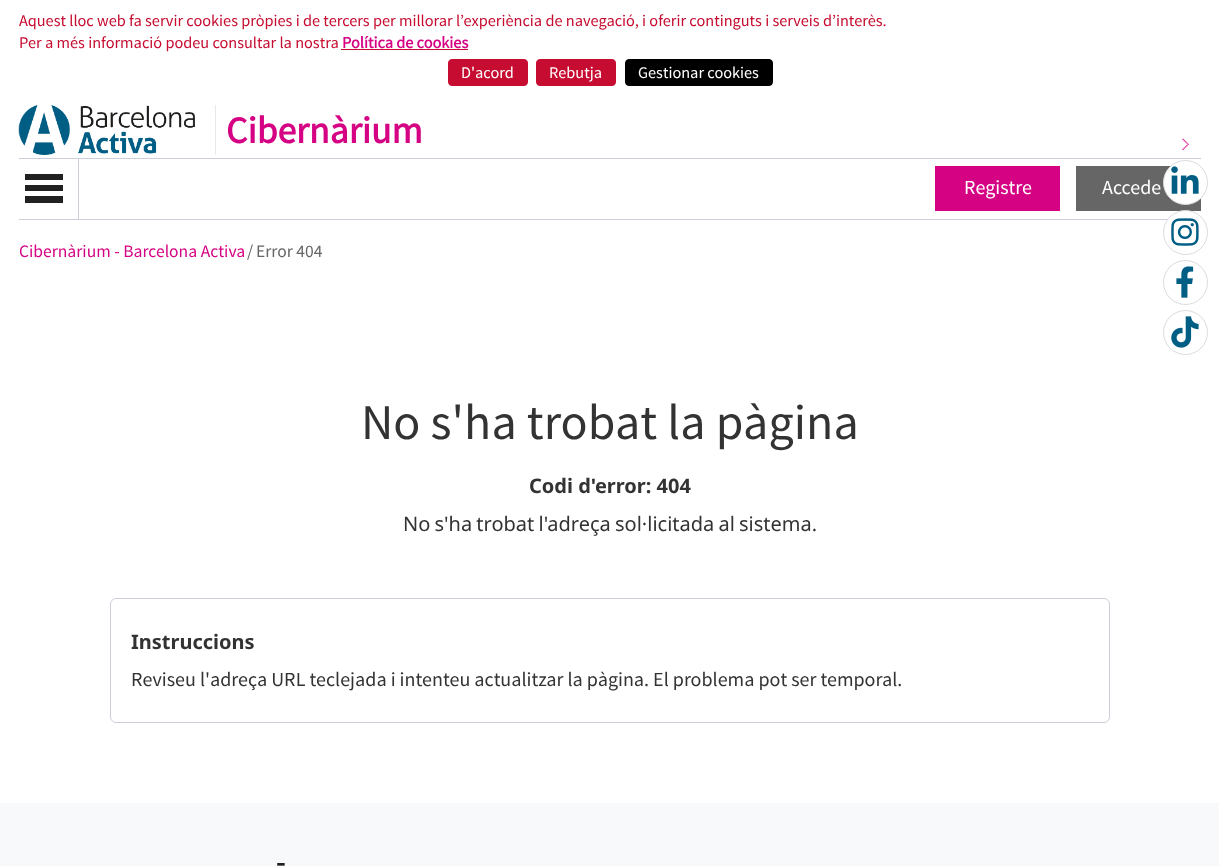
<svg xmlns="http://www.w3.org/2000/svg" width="1219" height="866">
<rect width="100%" height="100%" fill="#fff"/>
<text x="19" y="26" style="font-family:Source Sans Pro;font-size:16.25px;fill:#c60c30">Aquest lloc web fa servir cookies pròpies i de tercers per millorar l’experiència de navegació, i oferir continguts i serveis d’interès.</text>
<text x="19" y="48" style="font-family:Source Sans Pro;font-size:16.25px;fill:#c60c30">Per a més informació podeu consultar la nostra</text>
<text x="342" y="48" style="font-family:Source Sans Pro;font-size:16.25px;font-weight:bold;fill:#d50283">Política de cookies</text>
<rect x="341" y="49" width="127" height="1" fill="#c60c30"/>
<rect x="448.5" y="59.5" width="79" height="26" rx="3.5" fill="#c60c30" stroke="#c60c30"/>
<text x="461" y="78" style="font-family:Source Sans Pro;font-size:16.25px;fill:#fff">D'acord</text>
<rect x="536.5" y="59.5" width="79" height="26" rx="3.5" fill="#c60c30" stroke="#c60c30"/>
<text x="549" y="78" style="font-family:Source Sans Pro;font-size:16.25px;fill:#fff">Rebutja</text>
<rect x="625.5" y="59.5" width="147" height="26" rx="3.5" fill="#000" stroke="#000"/>
<text x="638" y="78" style="font-family:Source Sans Pro;font-size:16.25px;fill:#fff">Gestionar cookies</text>
<image x="18" y="105" width="177" height="50" href="media/1.png"/>
<rect x="215" y="105" width="1" height="50" fill="#e8e8e8"/>
<text x="226" y="143" style="font-family:Source Sans Pro;font-size:37.5px;font-weight:bold;fill:#d50283">Cibernàrium</text>
<rect x="19" y="158" width="1182" height="1" fill="#cdced9"/>
<rect x="19" y="219" width="1149" height="1" fill="#cdced9"/>
<rect x="78" y="159" width="1" height="60" fill="#cdced9"/>
<rect x="25" y="185" width="38" height="6" fill="#212121"/>
<rect x="25" y="174" width="38" height="6" fill="#212121"/>
<rect x="25" y="196" width="38" height="7" fill="#212121"/>
<rect x="935" y="166" width="125" height="45" fill="#d50283"/>
<text x="964" y="194" style="font-family:Source Sans Pro;font-size:20px;fill:#fff">Registre</text>
<rect x="1076" y="166" width="125" height="45" fill="#666"/>
<text x="1102" y="194" style="font-family:Source Sans Pro;font-size:20px;fill:#fff">Accede</text>
<text x="19" y="257" style="font-family:Source Sans Pro;font-size:17.5px;fill:#d50283">Cibernàrium - Barcelona Activa</text>
<text x="247" y="257" style="font-family:Source Sans Pro;font-size:17.5px;fill:#666">/</text>
<text x="256" y="257" style="font-family:Source Sans Pro;font-size:17.5px;fill:#666">Error 404</text>
<image x="1182" y="138" width="7" height="12" href="media/2.png"/>
<circle cx="1185.5" cy="182.5" r="22" fill="#fff" stroke="#d9dcdf"/>
<image x="1171" y="166" width="28" height="28" href="media/3.png"/>
<circle cx="1185.5" cy="232.5" r="22" fill="#fff" stroke="#d9dcdf"/>
<image x="1171" y="218" width="28" height="28" href="media/4.png"/>
<circle cx="1185.5" cy="282.5" r="22" fill="none" stroke="#d9dcdf"/>
<image x="1176" y="266" width="18" height="32" href="media/5.png"/>
<circle cx="1185.5" cy="332.5" r="22" fill="none" stroke="#d9dcdf"/>
<image x="1171" y="316" width="28" height="32" href="media/6.png"/>
<text x="361" y="439" style="font-family:Source Sans Pro;font-size:50px;fill:#333">No s'ha trobat la pàgina</text>
<text x="529" y="493" style="font-family:Noto Sans;font-size:20px;font-weight:bold;fill:#333">Codi d'error: 404</text>
<text x="403" y="531" word-spacing="-1" style="font-family:Noto Sans;font-size:20px;fill:#333">No s'ha trobat l'adreça sol·licitada al sistema.</text>
<rect x="110.5" y="598.5" width="999" height="124" rx="5.5" fill="none" stroke="#cdced9"/>
<text x="131" y="649" style="font-family:Noto Sans;font-size:20px;font-weight:bold;fill:#333">Instruccions</text>
<text x="131" y="686" style="font-family:Source Sans Pro;font-size:20px;fill:#333">Reviseu l'adreça URL teclejada i intenteu actualitzar la pàgina. El problema pot ser temporal.</text>
<rect y="803" width="1219" height="63" fill="#f8f9fa"/>
<text x="276" y="872" style="font-family:Source Sans Pro;font-size:29px;font-weight:bold;fill:#212121">-</text>
</svg>
